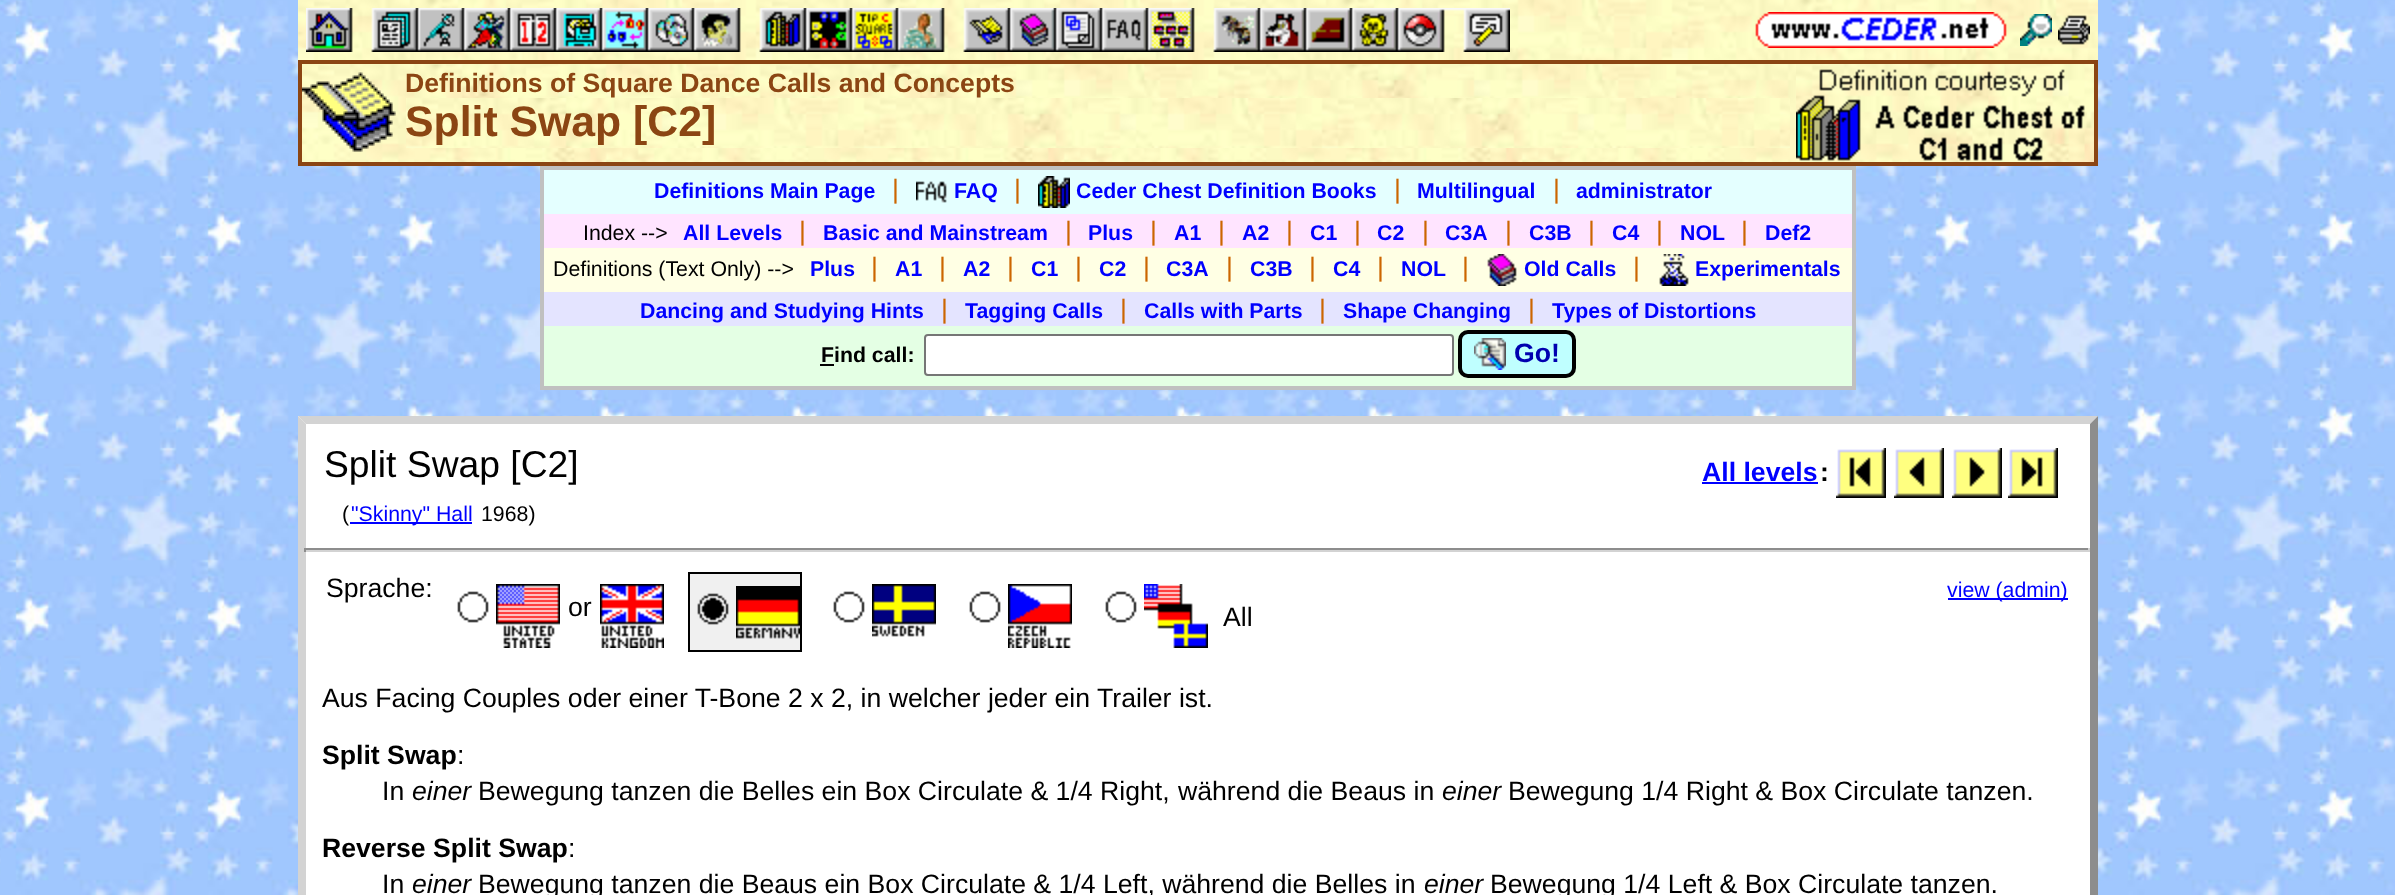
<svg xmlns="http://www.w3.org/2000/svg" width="2395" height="895">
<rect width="100%" height="100%" fill="#fff"/>
<image x="0" y="0" width="2395" height="895" href="media/1.png"/>
<image x="298" y="0" width="1800" height="60" href="media/2.png"/>
<image x="1755" y="12" width="252" height="36" href="media/3.png"/>
<image x="2020" y="14" width="32" height="32" href="media/4.png"/>
<image x="2058" y="15" width="32" height="30" href="media/5.png"/>
<image x="306" y="8" width="1204" height="44" href="media/6.png"/>
<image x="302" y="64" width="1494" height="98" href="media/7.png"/>
<rect x="300" y="62" width="1796" height="102" fill="none" stroke="#8b4513" stroke-width="4"/>
<image x="302" y="72" width="94" height="80" href="media/8.png"/>
<text x="405" y="92" style="font-family:Liberation Sans;font-size:26.65px;font-weight:bold;fill:#8b4513">Definitions of Square Dance Calls and Concepts</text>
<image x="406" y="98" width="1384" height="50" href="media/9.png"/>
<text x="405" y="136" style="font-family:Liberation Sans;font-size:42.75px;font-weight:bold;fill:#8b4513">Split Swap [C2]</text>
<image x="1796" y="64" width="298" height="98" href="media/10.png"/>
<image x="1796" y="69" width="289" height="92" href="media/11.png"/>
<rect x="540" y="166" width="1316" height="4" fill="#c0c0c0"/>
<rect x="1852" y="166" width="4" height="224" fill="#c0c0c0"/>
<rect x="540" y="386" width="1316" height="4" fill="#c0c0c0"/>
<rect x="540" y="166" width="4" height="224" fill="#c0c0c0"/>
<rect x="544" y="170" width="1308" height="44" fill="#e4ffff"/>
<text x="654" y="198" style="font-family:Liberation Sans;font-size:21.3px;font-weight:bold;fill:#00f">Definitions Main Page</text>
<text x="892" y="198" style="font-family:Liberation Sans;font-size:26.65px;fill:#c60">|</text>
<image x="916" y="181" width="31" height="22" href="media/12.png"/>
<text x="954" y="198" style="font-family:Liberation Sans;font-size:21.3px;font-weight:bold;fill:#00f">FAQ</text>
<text x="1014" y="198" style="font-family:Liberation Sans;font-size:26.65px;fill:#c60">|</text>
<image x="1038" y="176" width="32" height="32" href="media/13.png"/>
<text x="1076" y="198" style="font-family:Liberation Sans;font-size:21.3px;font-weight:bold;fill:#00f">Ceder Chest Definition Books</text>
<text x="1394" y="198" style="font-family:Liberation Sans;font-size:26.65px;fill:#c60">|</text>
<text x="1417" y="198" style="font-family:Liberation Sans;font-size:21.3px;font-weight:bold;fill:#00f">Multilingual</text>
<text x="1553" y="198" style="font-family:Liberation Sans;font-size:26.65px;fill:#c60">|</text>
<text x="1576" y="198" style="font-family:Liberation Sans;font-size:21.3px;font-weight:bold;fill:#00f">administrator</text>
<rect x="544" y="214" width="1308" height="34" fill="#ffe4ff"/>
<text x="583" y="240" style="font-family:Liberation Sans;font-size:21.3px;fill:#000">Index --&gt;</text>
<text x="683" y="240" style="font-family:Liberation Sans;font-size:21.3px;font-weight:bold;fill:#00f">All Levels</text>
<text x="799" y="240" style="font-family:Liberation Sans;font-size:26.65px;fill:#c60">|</text>
<text x="823" y="240" style="font-family:Liberation Sans;font-size:21.3px;font-weight:bold;fill:#00f">Basic and Mainstream</text>
<text x="1065" y="240" style="font-family:Liberation Sans;font-size:26.65px;fill:#c60">|</text>
<text x="1088" y="240" style="font-family:Liberation Sans;font-size:21.3px;font-weight:bold;fill:#00f">Plus</text>
<text x="1150" y="240" style="font-family:Liberation Sans;font-size:26.65px;fill:#c60">|</text>
<text x="1174" y="240" style="font-family:Liberation Sans;font-size:21.3px;font-weight:bold;fill:#00f">A1</text>
<text x="1218" y="240" style="font-family:Liberation Sans;font-size:26.65px;fill:#c60">|</text>
<text x="1242" y="240" style="font-family:Liberation Sans;font-size:21.3px;font-weight:bold;fill:#00f">A2</text>
<text x="1286" y="240" style="font-family:Liberation Sans;font-size:26.65px;fill:#c60">|</text>
<text x="1310" y="240" style="font-family:Liberation Sans;font-size:21.3px;font-weight:bold;fill:#00f">C1</text>
<text x="1354" y="240" style="font-family:Liberation Sans;font-size:26.65px;fill:#c60">|</text>
<text x="1377" y="240" style="font-family:Liberation Sans;font-size:21.3px;font-weight:bold;fill:#00f">C2</text>
<text x="1422" y="240" style="font-family:Liberation Sans;font-size:26.65px;fill:#c60">|</text>
<text x="1445" y="240" style="font-family:Liberation Sans;font-size:21.3px;font-weight:bold;fill:#00f">C3A</text>
<text x="1505" y="240" style="font-family:Liberation Sans;font-size:26.65px;fill:#c60">|</text>
<text x="1529" y="240" style="font-family:Liberation Sans;font-size:21.3px;font-weight:bold;fill:#00f">C3B</text>
<text x="1588" y="240" style="font-family:Liberation Sans;font-size:26.65px;fill:#c60">|</text>
<text x="1612" y="240" style="font-family:Liberation Sans;font-size:21.3px;font-weight:bold;fill:#00f">C4</text>
<text x="1656" y="240" style="font-family:Liberation Sans;font-size:26.65px;fill:#c60">|</text>
<text x="1680" y="240" style="font-family:Liberation Sans;font-size:21.3px;font-weight:bold;fill:#00f">NOL</text>
<text x="1741" y="240" style="font-family:Liberation Sans;font-size:26.65px;fill:#c60">|</text>
<text x="1765" y="240" style="font-family:Liberation Sans;font-size:21.3px;font-weight:bold;fill:#00f">Def2</text>
<rect x="544" y="248" width="1308" height="44" fill="#ffffe4"/>
<text x="553" y="276" style="font-family:Liberation Sans;font-size:21.3px;fill:#000">Definitions (Text Only) --&gt;</text>
<text x="810" y="276" style="font-family:Liberation Sans;font-size:21.3px;font-weight:bold;fill:#00f">Plus</text>
<text x="871" y="276" style="font-family:Liberation Sans;font-size:26.65px;fill:#c60">|</text>
<text x="895" y="276" style="font-family:Liberation Sans;font-size:21.3px;font-weight:bold;fill:#00f">A1</text>
<text x="939" y="276" style="font-family:Liberation Sans;font-size:26.65px;fill:#c60">|</text>
<text x="963" y="276" style="font-family:Liberation Sans;font-size:21.3px;font-weight:bold;fill:#00f">A2</text>
<text x="1007" y="276" style="font-family:Liberation Sans;font-size:26.65px;fill:#c60">|</text>
<text x="1031" y="276" style="font-family:Liberation Sans;font-size:21.3px;font-weight:bold;fill:#00f">C1</text>
<text x="1075" y="276" style="font-family:Liberation Sans;font-size:26.65px;fill:#c60">|</text>
<text x="1099" y="276" style="font-family:Liberation Sans;font-size:21.3px;font-weight:bold;fill:#00f">C2</text>
<text x="1143" y="276" style="font-family:Liberation Sans;font-size:26.65px;fill:#c60">|</text>
<text x="1166" y="276" style="font-family:Liberation Sans;font-size:21.3px;font-weight:bold;fill:#00f">C3A</text>
<text x="1226" y="276" style="font-family:Liberation Sans;font-size:26.65px;fill:#c60">|</text>
<text x="1250" y="276" style="font-family:Liberation Sans;font-size:21.3px;font-weight:bold;fill:#00f">C3B</text>
<text x="1309" y="276" style="font-family:Liberation Sans;font-size:26.65px;fill:#c60">|</text>
<text x="1333" y="276" style="font-family:Liberation Sans;font-size:21.3px;font-weight:bold;fill:#00f">C4</text>
<text x="1377" y="276" style="font-family:Liberation Sans;font-size:26.65px;fill:#c60">|</text>
<text x="1401" y="276" style="font-family:Liberation Sans;font-size:21.3px;font-weight:bold;fill:#00f">NOL</text>
<text x="1462" y="276" style="font-family:Liberation Sans;font-size:26.65px;fill:#c60">|</text>
<image x="1487" y="254" width="30" height="32" href="media/14.png"/>
<text x="1524" y="276" style="font-family:Liberation Sans;font-size:21.3px;font-weight:bold;fill:#00f">Old Calls</text>
<text x="1633" y="276" style="font-family:Liberation Sans;font-size:26.65px;fill:#c60">|</text>
<image x="1659" y="254" width="30" height="32" href="media/15.png"/>
<text x="1695" y="276" style="font-family:Liberation Sans;font-size:21.3px;font-weight:bold;fill:#00f">Experimentals</text>
<rect x="544" y="292" width="1308" height="34" fill="#e4e4ff"/>
<text x="640" y="318" style="font-family:Liberation Sans;font-size:21.3px;font-weight:bold;fill:#00f">Dancing and Studying Hints</text>
<text x="941" y="318" style="font-family:Liberation Sans;font-size:26.65px;fill:#c60">|</text>
<text x="965" y="318" style="font-family:Liberation Sans;font-size:21.3px;font-weight:bold;fill:#00f">Tagging Calls</text>
<text x="1120" y="318" style="font-family:Liberation Sans;font-size:26.65px;fill:#c60">|</text>
<text x="1144" y="318" style="font-family:Liberation Sans;font-size:21.3px;font-weight:bold;fill:#00f">Calls with Parts</text>
<text x="1319" y="318" style="font-family:Liberation Sans;font-size:26.65px;fill:#c60">|</text>
<text x="1343" y="318" style="font-family:Liberation Sans;font-size:21.3px;font-weight:bold;fill:#00f">Shape Changing</text>
<text x="1528" y="318" style="font-family:Liberation Sans;font-size:26.65px;fill:#c60">|</text>
<text x="1552" y="318" style="font-family:Liberation Sans;font-size:21.3px;font-weight:bold;fill:#00f">Types of Distortions</text>
<rect x="544" y="326" width="1308" height="60" fill="#e4ffe4"/>
<text x="821" y="362" style="font-family:Liberation Sans;font-size:21.3px;font-weight:bold;fill:#000">Find call:</text>
<rect x="820" y="364" width="14" height="2" fill="#000"/>
<rect x="925" y="335" width="528" height="40" rx="3" fill="#fff" stroke="#767676" stroke-width="2"/>
<rect x="1460" y="332" width="114" height="44" rx="8" fill="#bfffff" stroke="#000" stroke-width="4"/>
<image x="1474" y="338" width="32" height="32" href="media/16.png"/>
<text x="1514" y="362" style="font-family:Liberation Sans;font-size:26.65px;font-weight:bold;fill:#0000b0">Go!</text>
<rect x="298" y="416" width="1800" height="479" fill="#fff"/>
<path d="M298 416h1800l-8 8h-1784z" fill="#d3d3d3"/>
<path d="M2098 416v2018l-8-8v-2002z" fill="#8d8d8d"/>
<path d="M298 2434v-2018l8 8v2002z" fill="#d3d3d3"/>
<text x="324" y="477" style="font-family:Liberation Sans;font-size:37.25px;fill:#000">Split Swap [C2]</text>
<text x="342" y="521" style="font-family:Liberation Sans;font-size:21.3px;fill:#000">(</text>
<rect x="350" y="522" width="122" height="2" fill="#00f"/>
<text x="351" y="521" style="font-family:Liberation Sans;font-size:21.3px;fill:#00f">"Skinny" Hall</text>
<text x="481" y="521" style="font-family:Liberation Sans;font-size:21.3px;fill:#000">1968)</text>
<text x="1702" y="481" style="font-family:Liberation Sans;font-size:26.65px;font-weight:bold;fill:#00f">All levels</text>
<text x="1820" y="481" style="font-family:Liberation Sans;font-size:26.65px;font-weight:bold;fill:#000">:</text>
<rect x="1702" y="482" width="116" height="2" fill="#00f"/>
<image x="1836" y="448" width="50" height="50" href="media/17.png"/>
<image x="1894" y="448" width="50" height="50" href="media/18.png"/>
<image x="1952" y="448" width="50" height="50" href="media/19.png"/>
<image x="2008" y="448" width="50" height="50" href="media/20.png"/>
<rect x="304" y="548" width="1786" height="2" fill="#8d8d8d"/>
<rect x="2088" y="548" width="2" height="4" fill="#d3d3d3"/>
<rect x="304" y="550" width="1786" height="2" fill="#d3d3d3"/>
<rect x="304" y="548" width="2" height="4" fill="#8d8d8d"/>
<text x="326" y="597" style="font-family:Liberation Sans;font-size:26.65px;fill:#000">Sprache:</text>
<image x="457" y="591" width="32" height="32" href="media/21.png"/>
<image x="496" y="584" width="64" height="64" href="media/22.png"/>
<text x="568" y="616" style="font-family:Liberation Sans;font-size:26.65px;fill:#000">or</text>
<image x="600" y="584" width="64" height="64" href="media/23.png"/>
<rect x="689" y="573" width="112" height="78" fill="#f0f0f0" stroke="#000" stroke-width="2"/>
<image x="697" y="593" width="32" height="32" href="media/24.png"/>
<image x="736" y="586" width="64" height="53" href="media/25.png"/>
<image x="833" y="591" width="32" height="32" href="media/21.png"/>
<image x="872" y="584" width="64" height="53" href="media/26.png"/>
<image x="969" y="591" width="32" height="32" href="media/21.png"/>
<image x="1008" y="584" width="64" height="64" href="media/27.png"/>
<image x="1105" y="591" width="32" height="32" href="media/21.png"/>
<image x="1144" y="584" width="64" height="64" href="media/28.png"/>
<text x="1223" y="626" style="font-family:Liberation Sans;font-size:26.65px;fill:#000">All</text>
<rect x="1948" y="598" width="120" height="2" fill="#00f"/>
<text x="1947" y="597" style="font-family:Liberation Sans;font-size:21.3px;fill:#00f">view (admin)</text>
<text x="322" y="707" style="font-family:Liberation Sans;font-size:26.65px;fill:#000">Aus Facing Couples oder einer T-Bone 2 x 2, in welcher jeder ein Trailer ist.</text>
<text x="322" y="764" style="font-family:Liberation Sans;font-size:26.65px;font-weight:bold;fill:#000">Split Swap</text>
<text x="457" y="764" style="font-family:Liberation Sans;font-size:26.65px;fill:#000">:</text>
<text x="382" y="800" style="font-family:Liberation Sans;font-size:26.65px;fill:#000">In</text>
<text x="412" y="800" style="font-family:Liberation Sans;font-size:26.65px;font-style:italic;fill:#000">einer</text>
<text x="478" y="800" style="font-family:Liberation Sans;font-size:26.65px;fill:#000">Bewegung tanzen die Belles ein Box Circulate &amp; 1/4 Right,</text>
<text x="1178" y="800" style="font-family:Liberation Sans;font-size:26.65px;fill:#000">während die Beaus in</text>
<text x="1442" y="800" style="font-family:Liberation Sans;font-size:26.65px;font-style:italic;fill:#000">einer</text>
<text x="1508" y="800" style="font-family:Liberation Sans;font-size:26.65px;fill:#000">Bewegung 1/4 Right &amp; Box Circulate tanzen.</text>
<text x="322" y="857" style="font-family:Liberation Sans;font-size:26.65px;font-weight:bold;fill:#000">Reverse Split Swap</text>
<text x="568" y="857" style="font-family:Liberation Sans;font-size:26.65px;fill:#000">:</text>
<text x="382" y="893" style="font-family:Liberation Sans;font-size:26.65px;fill:#000">In</text>
<text x="412" y="893" style="font-family:Liberation Sans;font-size:26.65px;font-style:italic;fill:#000">einer</text>
<text x="478" y="893" style="font-family:Liberation Sans;font-size:26.65px;fill:#000">Bewegung tanzen die Beaus ein Box Circulate &amp; 1/4 Left, während die Belles in</text>
<text x="1424" y="893" style="font-family:Liberation Sans;font-size:26.65px;font-style:italic;fill:#000">einer</text>
<text x="1490" y="893" style="font-family:Liberation Sans;font-size:26.65px;fill:#000">Bewegung 1/4 Left &amp; Box Circulate tanzen.</text>
</svg>
